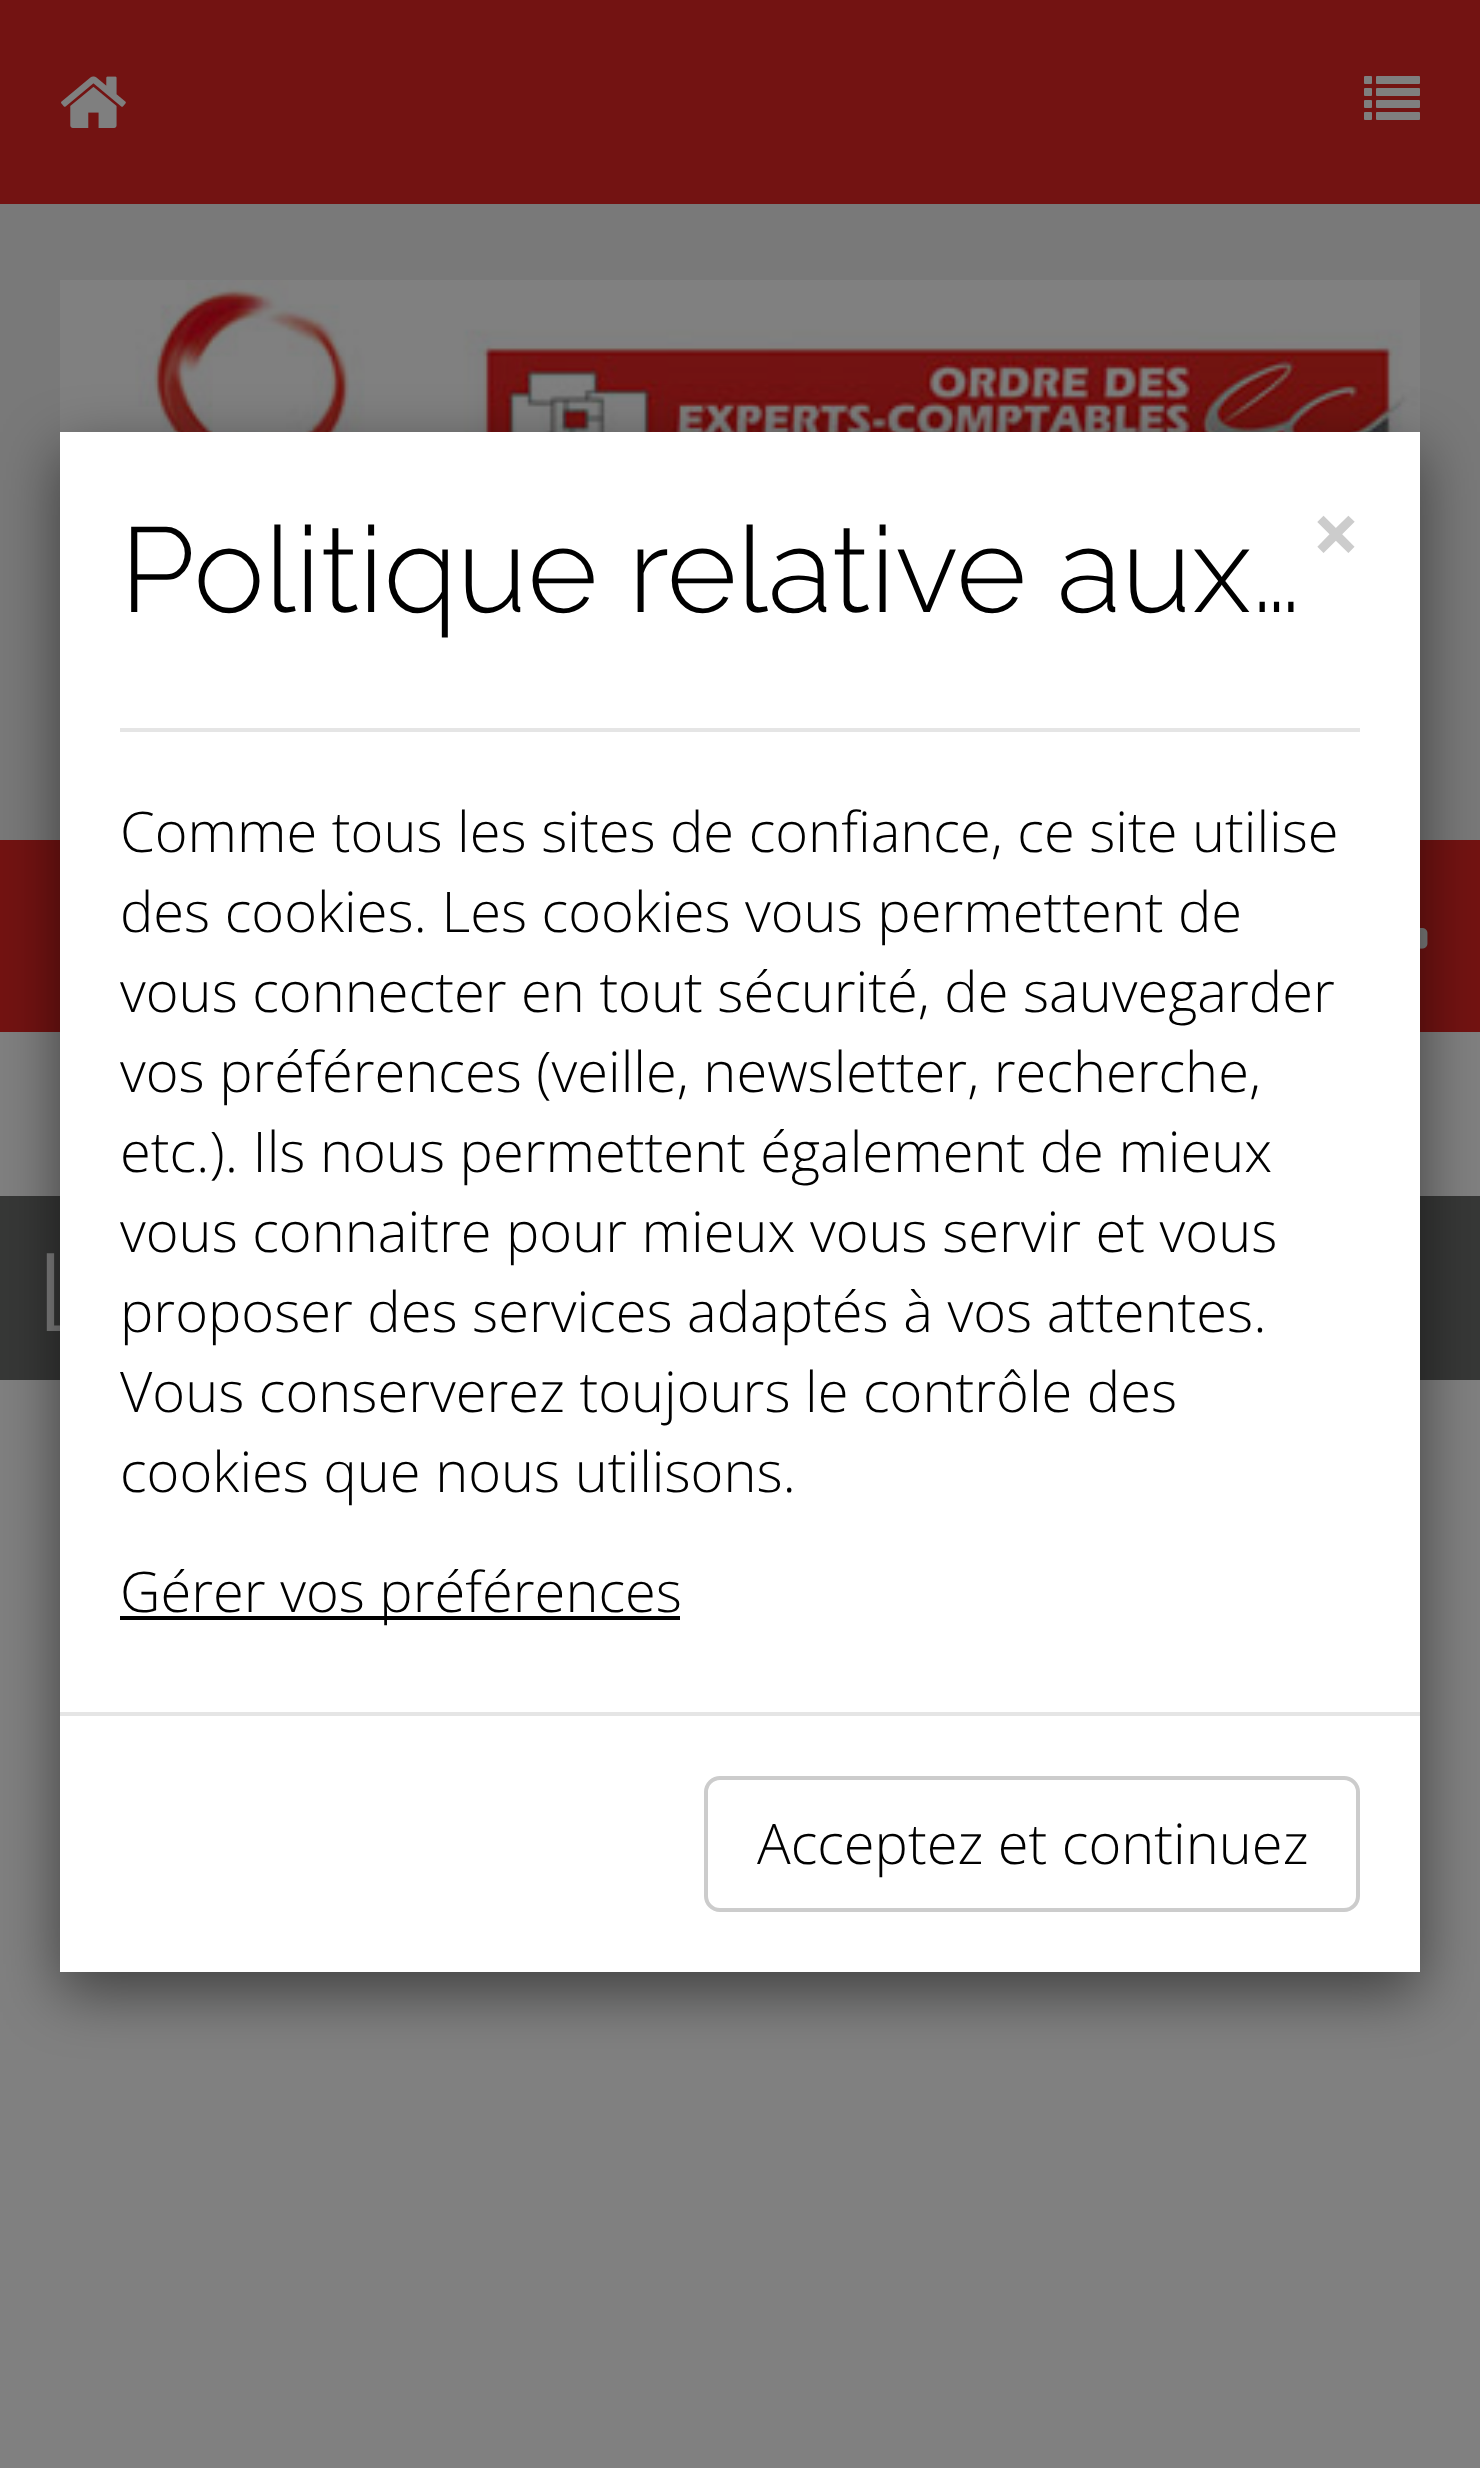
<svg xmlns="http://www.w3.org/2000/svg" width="1480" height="2468">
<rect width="100%" height="100%" fill="#797979"/>
<rect width="1480" height="204" fill="#731312"/>
<image x="61" y="76" width="65" height="52" href="media/1.png"/>
<image x="1364" y="76" width="56" height="44" href="media/2.png"/>
<image x="60" y="280" width="1360" height="152" href="media/3.png"/>
<rect y="840" width="1480" height="192" fill="#731312"/>
<image x="1420" y="928" width="8" height="21" href="media/4.png"/>
<rect y="1032" width="1480" height="1436" fill="#808080"/>
<rect y="1196" width="1480" height="184" fill="#373837"/>
<text x="40" y="1331" style="font-family:Oswald;font-size:96px;font-weight:300;fill:#7f7f7f">L</text>
<rect x="60" y="452" width="1360" height="1540" fill="#00000080" filter="blur(30px)"/>
<rect x="60" y="432" width="1360" height="1540" fill="#fff"/>
<text x="120" y="612" style="font-family:Raleway;font-size:120px;font-weight:100;fill:#000">Politique relative aux…</text>
<text x="1312" y="564" style="font-family:Open Sans;font-size:84px;font-weight:bold;fill:#ccc">×</text>
<rect x="120" y="728" width="1240" height="4" fill="#e5e5e5"/>
<text x="120" y="852" style="font-family:Open Sans;font-size:56px;font-weight:300;fill:#000">Comme tous les sites de confiance, ce site utilise</text>
<text x="120" y="932" style="font-family:Open Sans;font-size:56px;font-weight:300;fill:#000">des cookies. Les cookies vous permettent de</text>
<text x="120" y="1012" style="font-family:Open Sans;font-size:56px;font-weight:300;fill:#000">vous connecter en tout sécurité, de sauvegarder</text>
<text x="120" y="1092" style="font-family:Open Sans;font-size:56px;font-weight:300;fill:#000">vos préférences (veille, newsletter, recherche,</text>
<text x="120" y="1172" style="font-family:Open Sans;font-size:56px;font-weight:300;fill:#000">etc.). Ils nous permettent également de mieux</text>
<text x="120" y="1252" style="font-family:Open Sans;font-size:56px;font-weight:300;fill:#000">vous connaitre pour mieux vous servir et vous</text>
<text x="120" y="1332" style="font-family:Open Sans;font-size:56px;font-weight:300;fill:#000">proposer des services adaptés à vos attentes.</text>
<text x="120" y="1412" style="font-family:Open Sans;font-size:56px;font-weight:300;fill:#000">Vous conserverez toujours le contrôle des</text>
<text x="120" y="1492" style="font-family:Open Sans;font-size:56px;font-weight:300;fill:#000">cookies que nous utilisons.</text>
<rect x="120" y="1616" width="560" height="4" fill="#000"/>
<text x="120" y="1612" style="font-family:Open Sans;font-size:56px;font-weight:300;fill:#000">Gérer vos préférences</text>
<rect x="60" y="1712" width="1360" height="4" fill="#e5e5e5"/>
<rect x="706" y="1778" width="652" height="132" rx="14" fill="none" stroke="#ccc" stroke-width="4"/>
<text x="757" y="1864" style="font-family:Open Sans;font-size:56px;font-weight:300;fill:#000">Acceptez et continuez</text>
</svg>
